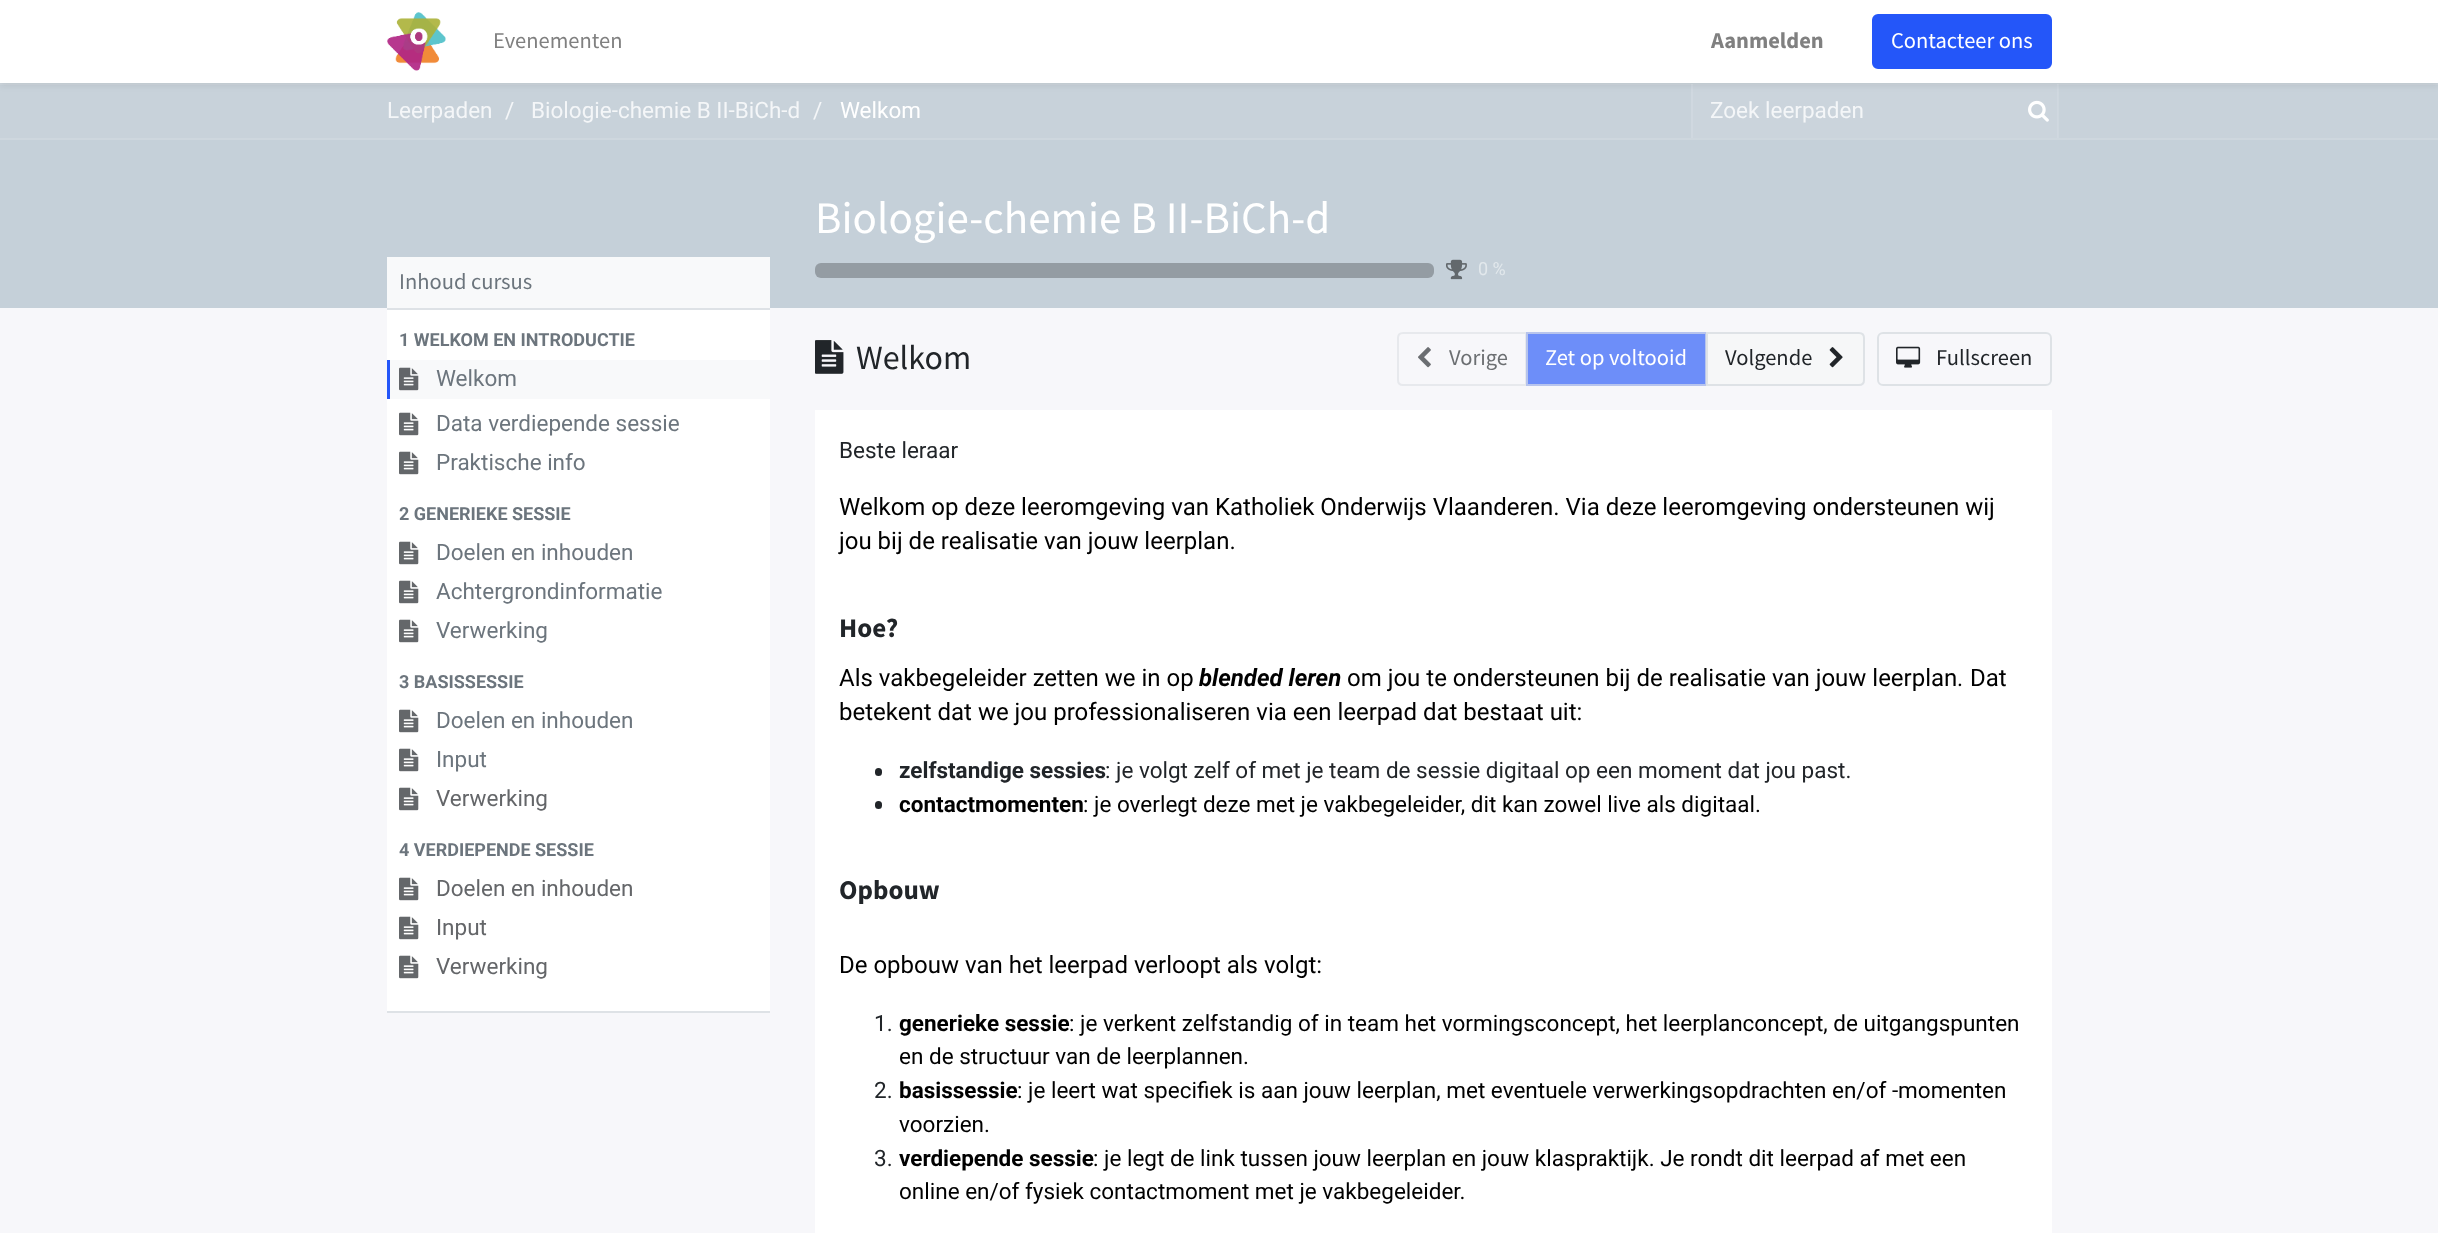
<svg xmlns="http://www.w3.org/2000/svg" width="2438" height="1233">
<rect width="100%" height="100%" fill="#f7f7fa"/>
<rect y="85" width="2438" height="53" fill="#c8d2da"/>
<rect x="2058" y="84" width="1" height="54" fill="#ced7de"/>
<rect x="1693" y="85" width="364" height="53" fill="#cbd4dc"/>
<rect x="1691" y="84" width="2" height="54" fill="#d0d8e0"/>
<rect x="2057" y="84" width="1" height="54" fill="#d0d8e0"/>
<rect y="83" width="2438" height="2" fill="#ced7de"/>
<rect x="2057" y="84" width="2" height="1" fill="#d3dbe1"/>
<rect x="2057" y="84" width="1" height="1" fill="#d0d9e0"/>
<rect x="1691" y="84" width="2" height="1" fill="#d5dde3"/>
<rect x="2057" y="84" width="1" height="1" fill="#d5dde3"/>
<rect y="3" width="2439" height="83" fill="#00000012" filter="blur(3px)"/>
<rect width="2438" height="83" fill="#fff"/>
<image x="387" y="12" width="59" height="59" href="media/1.png"/>
<text x="493" y="48" style="font-family:Source Sans Pro;font-size:22.5px;fill:#808080">Evenementen</text>
<text x="1711" y="48" style="font-family:Source Sans Pro;font-size:22.5px;font-weight:bold;fill:#808080">Aanmelden</text>
<rect x="1873" y="15" width="178" height="53" rx="5" fill="#2456f9" stroke="#2456f9" stroke-width="2"/>
<text x="1891" y="48" style="font-family:Source Sans Pro;font-size:22.5px;fill:#fff">Contacteer ons</text>
<rect y="140" width="2438" height="168" fill="#c5d0d9"/>
<rect y="138" width="2438" height="2" fill="#ced7de"/>
<text x="387" y="118" style="font-family:Roboto;font-size:22.5px;fill:#f4f6f8">Leerpaden</text>
<text x="505" y="118" style="font-family:Roboto;font-size:22.5px;fill:#f4f6f8">/</text>
<text x="531" y="118" style="font-family:Roboto;font-size:22.5px;fill:#f4f6f8">Biologie-chemie B II-BiCh-d</text>
<text x="813" y="118" style="font-family:Roboto;font-size:22.5px;fill:#f4f6f8">/</text>
<text x="840" y="118" style="font-family:Roboto;font-size:22.5px;fill:#fff">Welkom</text>
<text x="1710" y="118" style="font-family:Roboto;font-size:22.5px;fill:#f4f6f8">Zoek leerpaden</text>
<image x="2028" y="100" width="21" height="22" href="media/2.png"/>
<text x="815" y="233" style="font-family:Source Sans Pro;font-size:45px;fill:#fff">Biologie-chemie B II-BiCh-d</text>
<rect x="815" y="263" width="619" height="15" rx="6" fill="#949ca3"/>
<image x="1446" y="259" width="21" height="21" href="media/3.png"/>
<text x="1478" y="275" style="font-family:Roboto;font-size:18px;fill:#e2e8ec">0 %</text>
<rect x="387" y="310" width="383" height="701" fill="#fff"/>
<rect x="387" y="1011" width="383" height="2" fill="#dee2e6"/>
<rect x="387" y="257" width="383" height="51" fill="#f8f9fa"/>
<rect x="387" y="308" width="383" height="2" fill="#dee2e6"/>
<text x="399" y="289" style="font-family:Source Sans Pro;font-size:22.5px;fill:#6c757d">Inhoud cursus</text>
<text x="399" y="346" style="font-family:Roboto;font-size:18px;font-weight:bold;fill:#6c757d">1 WELKOM EN INTRODUCTIE</text>
<rect x="390" y="360" width="380" height="39" fill="#f8f9fa"/>
<rect x="387" y="360" width="3" height="39" fill="#2456f9"/>
<image x="399" y="367" width="20" height="24" href="media/4.png"/>
<text x="436" y="386" style="font-family:Roboto;font-size:22.5px;fill:#6c757d">Welkom</text>
<image x="399" y="412" width="20" height="24" href="media/5.png"/>
<text x="436" y="431" style="font-family:Roboto;font-size:22.5px;fill:#6c757d">Data verdiepende sessie</text>
<image x="399" y="451" width="20" height="24" href="media/5.png"/>
<text x="436" y="470" style="font-family:Roboto;font-size:22.5px;fill:#6c757d">Praktische info</text>
<text x="399" y="520" style="font-family:Roboto;font-size:18px;font-weight:bold;fill:#6c757d">2 GENERIEKE SESSIE</text>
<image x="399" y="541" width="20" height="24" href="media/5.png"/>
<text x="436" y="560" style="font-family:Roboto;font-size:22.5px;fill:#6c757d">Doelen en inhouden</text>
<image x="399" y="580" width="20" height="24" href="media/5.png"/>
<text x="436" y="599" style="font-family:Roboto;font-size:22.5px;fill:#6c757d">Achtergrondinformatie</text>
<image x="399" y="619" width="20" height="24" href="media/5.png"/>
<text x="436" y="638" style="font-family:Roboto;font-size:22.5px;fill:#6c757d">Verwerking</text>
<text x="399" y="688" style="font-family:Roboto;font-size:18px;font-weight:bold;fill:#6c757d">3 BASISSESSIE</text>
<image x="399" y="709" width="20" height="24" href="media/5.png"/>
<text x="436" y="728" style="font-family:Roboto;font-size:22.5px;fill:#6c757d">Doelen en inhouden</text>
<image x="399" y="748" width="20" height="24" href="media/5.png"/>
<text x="436" y="767" style="font-family:Roboto;font-size:22.5px;fill:#6c757d">Input</text>
<image x="399" y="787" width="20" height="24" href="media/5.png"/>
<text x="436" y="806" style="font-family:Roboto;font-size:22.5px;fill:#646669">Verwerking</text>
<text x="399" y="856" style="font-family:Roboto;font-size:18px;font-weight:bold;fill:#6c757d">4 VERDIEPENDE SESSIE</text>
<image x="399" y="877" width="20" height="24" href="media/5.png"/>
<text x="436" y="896" style="font-family:Roboto;font-size:22.5px;fill:#646669">Doelen en inhouden</text>
<image x="399" y="916" width="20" height="24" href="media/5.png"/>
<text x="436" y="935" style="font-family:Roboto;font-size:22.5px;fill:#646669">Input</text>
<image x="399" y="955" width="20" height="24" href="media/5.png"/>
<text x="436" y="974" style="font-family:Roboto;font-size:22.5px;fill:#646669">Verwerking</text>
<image x="815" y="340" width="29" height="34" href="media/6.png"/>
<text x="856" y="369" style="font-family:Source Sans Pro;font-size:34px;fill:#212529">Welkom</text>
<path d="M1403 333h123v52h-123c-3 0-5-2-5-5v-42c0-3 2-5 5-5z" fill="none" stroke="#e7e9ed" stroke-width="2"/>
<image x="1418" y="347" width="13" height="21" href="media/7.png"/>
<text x="1449" y="365" style="font-family:Source Sans Pro;font-size:22.5px;fill:#6c6f72">Vorige</text>
<rect x="1526" y="332" width="180" height="54" fill="#2456f9a6"/>
<rect x="1527" y="333" width="179" height="52" fill="none" stroke="#dee2e6a6" stroke-width="2"/>
<text x="1545" y="365" style="font-family:Source Sans Pro;font-size:22.5px;fill:#fff">Zet op voltooid</text>
<path d="M1707 333h152c3 0 5 2 5 5v42c0 3-2 5-5 5h-152z" fill="#f6f7f8" stroke="#dee2e6" stroke-width="2"/>
<text x="1725" y="365" style="font-family:Source Sans Pro;font-size:22.5px;fill:#212529">Volgende</text>
<image x="1829" y="347" width="14" height="21" href="media/8.png"/>
<rect x="1878" y="333" width="173" height="52" rx="5" fill="none" stroke="#dee2e6" stroke-width="2"/>
<image x="1896" y="346" width="25" height="22" href="media/9.png"/>
<text x="1936" y="365" style="font-family:Source Sans Pro;font-size:22.5px;fill:#212529">Fullscreen</text>
<rect x="815" y="410" width="1237" height="823" fill="#fff"/>
<text x="839" y="458" style="font-family:Roboto;font-size:22.5px;fill:#212529">Beste leraar</text>
<text x="839" y="515" style="font-family:Roboto;font-size:24px;fill:#000">Welkom op deze leeromgeving van Katholiek Onderwijs Vlaanderen. Via deze leeromgeving ondersteunen wij</text>
<text x="839" y="549" style="font-family:Roboto;font-size:24px;fill:#000">jou bij de realisatie van jouw leerplan.</text>
<text x="839" y="637" style="font-family:Source Sans Pro;font-size:27px;font-weight:bold;fill:#212529">Hoe?</text>
<text x="839" y="686" style="font-family:Roboto;font-size:24px;fill:#000">Als vakbegeleider zetten we in op</text>
<text x="1199" y="686" style="font-family:Roboto;font-size:24px;font-weight:bold;font-style:italic;fill:#000">blended leren</text>
<text x="1347" y="686" style="font-family:Roboto;font-size:24px;fill:#000">om jou te ondersteunen bij de realisatie van jouw leerplan</text>
<text x="1958" y="686" style="font-family:Roboto;font-size:24px;font-style:italic;fill:#000">.</text>
<text x="1970" y="686" style="font-family:Roboto;font-size:24px;fill:#000">Dat</text>
<text x="839" y="720" style="font-family:Roboto;font-size:24px;fill:#000">betekent dat we jou professionaliseren via een leerpad dat bestaat uit:</text>
<rect x="875" y="768" width="7" height="8" rx="3.5" fill="#212529"/>
<text x="899" y="778" style="font-family:Roboto;font-size:22.5px;font-weight:bold;fill:#212529">zelfstandige sessies</text>
<text x="1105" y="778" style="font-family:Roboto;font-size:22.5px;fill:#212529">: je volgt zelf of met je team de sessie digitaal op een moment dat jou past.</text>
<rect x="875" y="801" width="7" height="8" rx="3.5" fill="#212529"/>
<text x="899" y="812" style="font-family:Roboto;font-size:22.5px;font-weight:bold;fill:#000">contactmomenten</text>
<text x="1083" y="812" style="font-family:Roboto;font-size:22.5px;fill:#000">: je overlegt deze met je vakbegeleider, dit kan zowel live als digitaal.</text>
<text x="839" y="899" style="font-family:Source Sans Pro;font-size:27px;font-weight:bold;fill:#212529">Opbouw</text>
<text x="839" y="973" style="font-family:Roboto;font-size:24px;fill:#000">De opbouw van het leerpad verloopt als volgt:</text>
<text x="874" y="1031" style="font-family:Roboto;font-size:22.5px;fill:#212529">1.</text>
<text x="899" y="1031" style="font-family:Roboto;font-size:22.5px;font-weight:bold;fill:#000">generieke sessie</text>
<text x="1069" y="1031" style="font-family:Roboto;font-size:22.5px;fill:#000">: je verkent zelfstandig of in team het vormingsconcept, het leerplanconcept, de uitgangspunten</text>
<text x="899" y="1064" style="font-family:Roboto;font-size:22.5px;fill:#000">en de structuur van de leerplannen.</text>
<text x="874" y="1098" style="font-family:Roboto;font-size:22.5px;fill:#212529">2.</text>
<text x="899" y="1098" style="font-family:Roboto;font-size:22.5px;font-weight:bold;fill:#000">basissessie</text>
<text x="1017" y="1098" style="font-family:Roboto;font-size:22.5px;fill:#000">: je leert wat specifiek is aan jouw leerplan, met eventuele verwerkingsopdrachten en/of -momenten</text>
<text x="899" y="1132" style="font-family:Roboto;font-size:22.5px;fill:#000">voorzien.</text>
<text x="874" y="1166" style="font-family:Roboto;font-size:22.5px;fill:#212529">3.</text>
<text x="899" y="1166" style="font-family:Roboto;font-size:22.5px;font-weight:bold;fill:#000">verdiepende sessie</text>
<text x="1093" y="1166" style="font-family:Roboto;font-size:22.5px;fill:#000">: je legt de link tussen jouw leerplan en jouw klaspraktijk. Je rondt dit leerpad af met een</text>
<text x="899" y="1199" style="font-family:Roboto;font-size:22.5px;fill:#000">online en/of fysiek contactmoment met je vakbegeleider.</text>
</svg>
